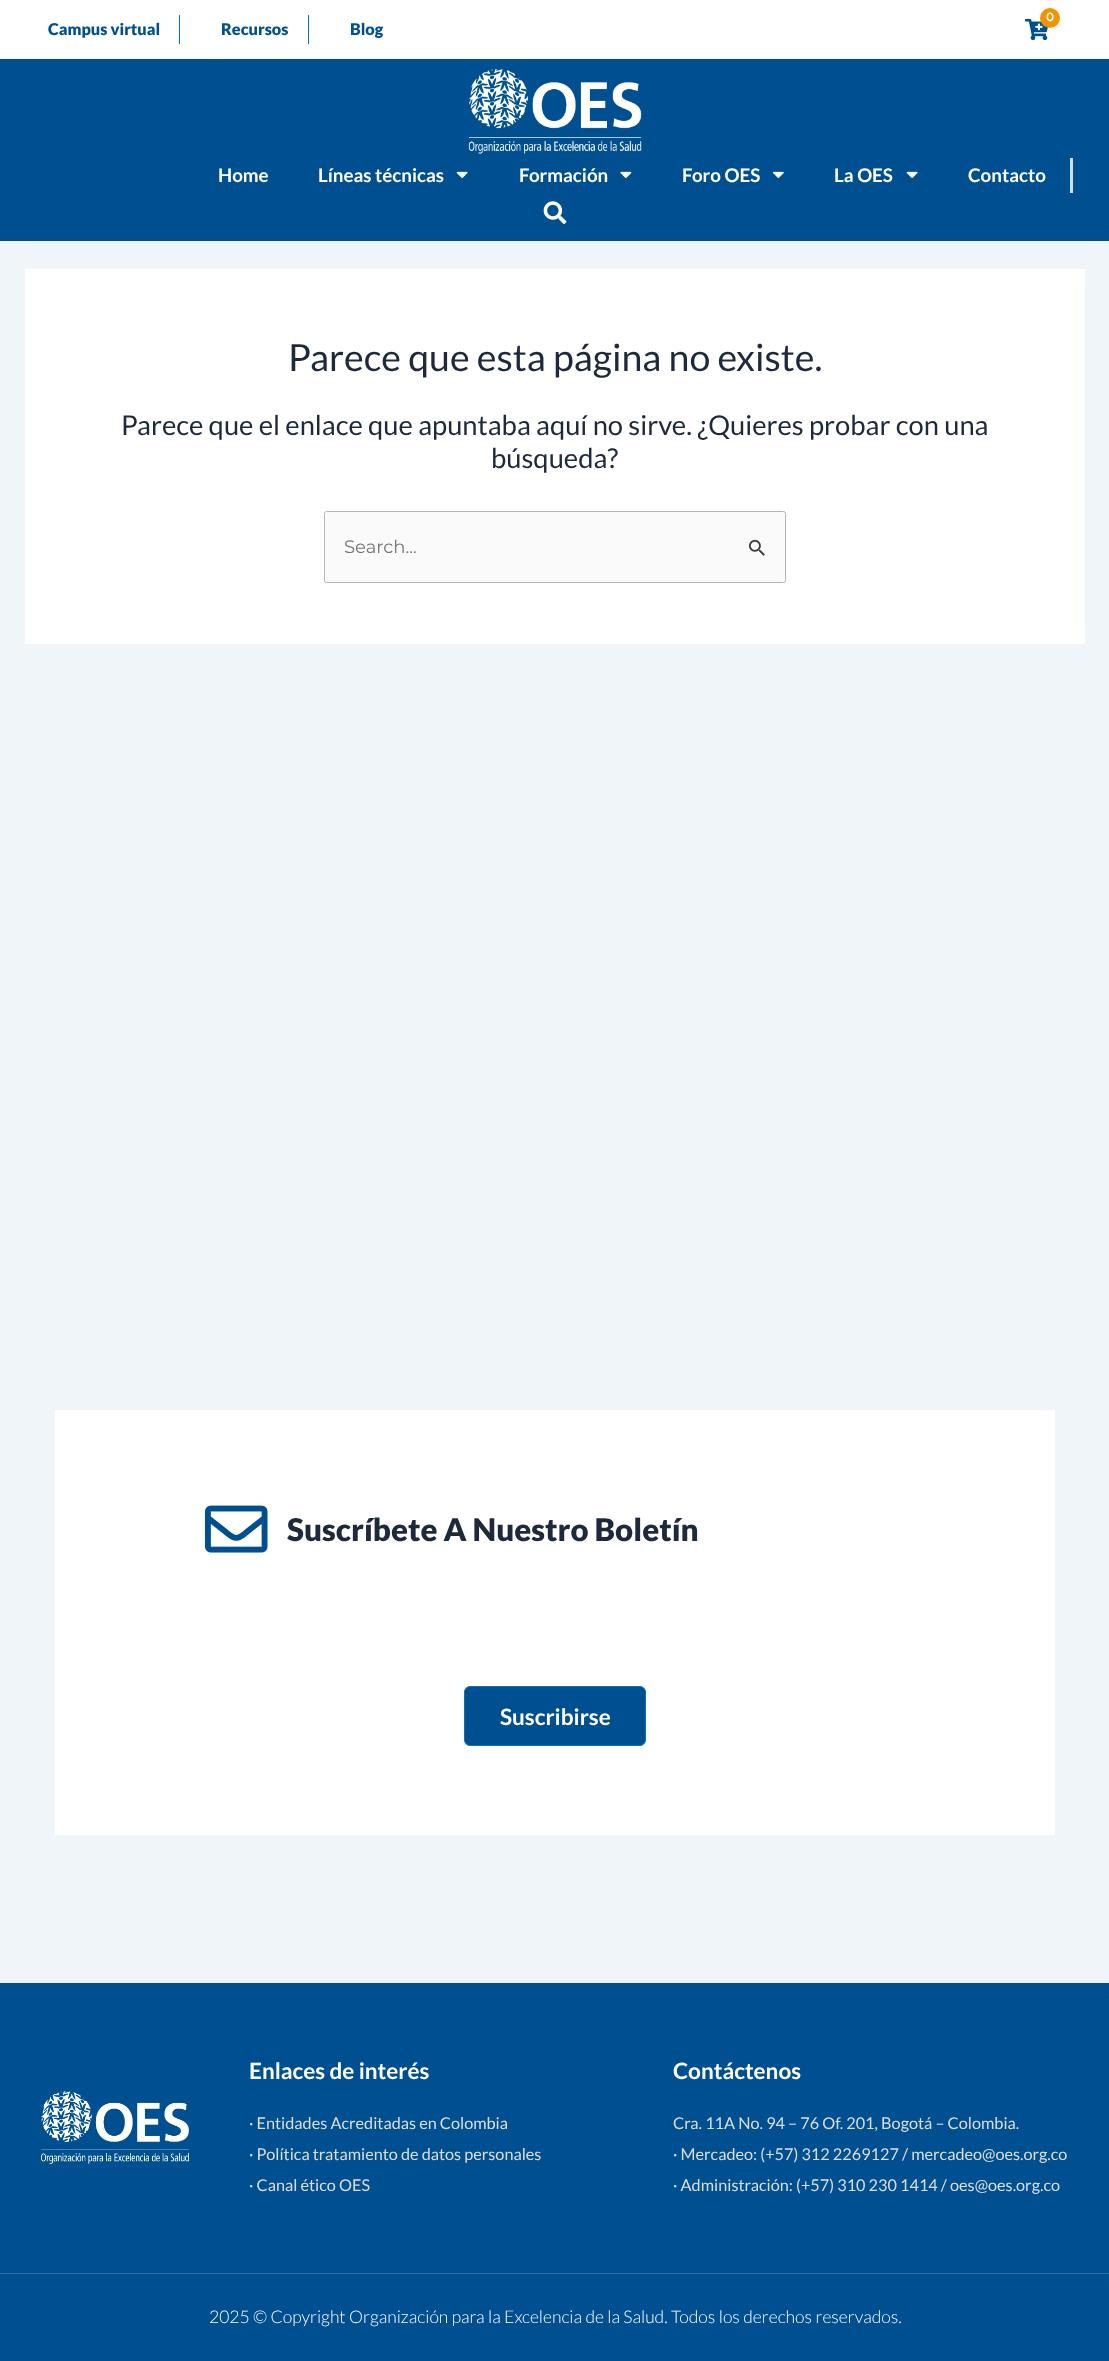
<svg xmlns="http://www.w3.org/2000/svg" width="1109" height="2361">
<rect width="100%" height="100%" fill="#f0f5fa"/>
<rect width="1109" height="59" fill="#fff"/>
<image x="1025" y="18" width="23" height="23" href="media/1.png"/>
<circle cx="1050" cy="18" r="10" fill="#f29400"/>
<text x="1046" y="21" style="font-family:Montserrat;font-size:12px;font-weight:600;fill:#fff">0</text>
<text x="48" y="35" style="font-family:Lato;font-size:16.25px;font-weight:900;fill:#005091">Campus virtual</text>
<rect x="179" y="15" width="1" height="29" fill="#0b72b5"/>
<text x="221" y="35" style="font-family:Lato;font-size:16.25px;font-weight:900;fill:#005091">Recursos</text>
<rect x="308" y="15" width="1" height="29" fill="#0b72b5"/>
<text x="350" y="35" style="font-family:Lato;font-size:16.25px;font-weight:900;fill:#005091">Blog</text>
<rect y="59" width="1109" height="182" fill="#005091"/>
<image x="468" y="68" width="174" height="86" href="media/2.png"/>
<rect x="1070" y="158" width="3" height="35" fill="#d5dee5"/>
<text x="218" y="182" style="font-family:Lato;font-size:18.75px;font-weight:bold;fill:#fff">Home</text>
<text x="318" y="182" style="font-family:Lato;font-size:18.75px;font-weight:bold;fill:#fff">Líneas técnicas</text>
<image x="456" y="171" width="12" height="7" href="media/3.png"/>
<text x="519" y="182" style="font-family:Lato;font-size:18.75px;font-weight:bold;fill:#fff">Formación</text>
<image x="620" y="171" width="12" height="7" href="media/4.png"/>
<text x="682" y="182" style="font-family:Lato;font-size:18.75px;font-weight:bold;fill:#fff">Foro OES</text>
<image x="772" y="171" width="12" height="7" href="media/5.png"/>
<text x="834" y="182" style="font-family:Lato;font-size:18.75px;font-weight:bold;fill:#fff">La OES</text>
<image x="906" y="171" width="12" height="7" href="media/3.png"/>
<text x="968" y="182" style="font-family:Lato;font-size:18.75px;font-weight:bold;fill:#fff">Contacto</text>
<image x="543" y="201" width="24" height="23" href="media/6.png"/>
<rect x="25" y="269" width="1060" height="375" fill="#fff"/>
<text x="288" y="371" style="font-family:Lato;font-size:37.5px;fill:#1e293b">Parece que esta página no existe.</text>
<text x="121" y="435" style="font-family:Lato;font-size:27.35px;fill:#1e293b">Parece que el enlace que apuntaba aquí no sirve. ¿Quieres probar con una</text>
<text x="491" y="468" style="font-family:Lato;font-size:27.35px;fill:#1e293b">búsqueda?</text>
<rect x="324.5" y="511.5" width="461" height="71" rx="2" fill="#fafafa" stroke="#adb6be"/>
<text x="344" y="553" style="font-family:Montserrat;font-size:18px;fill:#757575">Search...</text>
<image x="749" y="539" width="16" height="17" href="media/7.png"/>
<rect x="55" y="1410" width="1000" height="425" fill="#fff"/>
<image x="205" y="1505" width="63" height="48" href="media/8.png"/>
<text x="287" y="1541" style="font-family:Lato;font-size:31.25px;font-weight:900;fill:#1e293b">Suscríbete A Nuestro Boletín</text>
<rect x="464.5" y="1686.5" width="181" height="59" rx="5.5" fill="#005091" stroke="#0b72b5"/>
<text x="500" y="1725" style="font-family:Lato;font-size:22.5px;font-weight:bold;fill:#fff">Suscribirse</text>
<rect y="1983" width="1109" height="290" fill="#005091"/>
<image x="40" y="2091" width="150" height="73" href="media/9.png"/>
<text x="249" y="2079" style="font-family:Lato;font-size:22.5px;font-weight:bold;fill:#fff">Enlaces de interés</text>
<text x="249" y="2129" style="font-family:Lato;font-size:16.25px;fill:#dedede">· Entidades Acreditadas en Colombia</text>
<text x="249" y="2160" style="font-family:Lato;font-size:16.25px;fill:#dedede">· Política tratamiento de datos personales</text>
<text x="249" y="2191" style="font-family:Lato;font-size:16.25px;fill:#dedede">· Canal ético OES</text>
<text x="673" y="2079" style="font-family:Lato;font-size:22.5px;font-weight:bold;fill:#fff">Contáctenos</text>
<text x="673" y="2129" style="font-family:Lato;font-size:16.25px;fill:#dedede">Cra. 11A No. 94 – 76 Of. 201, Bogotá – Colombia.</text>
<text x="673" y="2160" style="font-family:Lato;font-size:16.25px;fill:#dedede">· Mercadeo: (+57) 312 2269127 / mercadeo@oes.org.co</text>
<text x="673" y="2191" style="font-family:Lato;font-size:16.25px;fill:#dedede">· Administración: (+57) 310 230 1414 / oes@oes.org.co</text>
<rect y="2274" width="1109" height="87" fill="#005091"/>
<rect y="2273" width="1109" height="1" fill="#3071a6"/>
<text x="209" y="2323" style="font-family:Lato;font-size:17.5px;font-weight:300;fill:#fff">2025 © Copyright Organización para la Excelencia de la Salud. Todos los derechos reservados.</text>
</svg>
